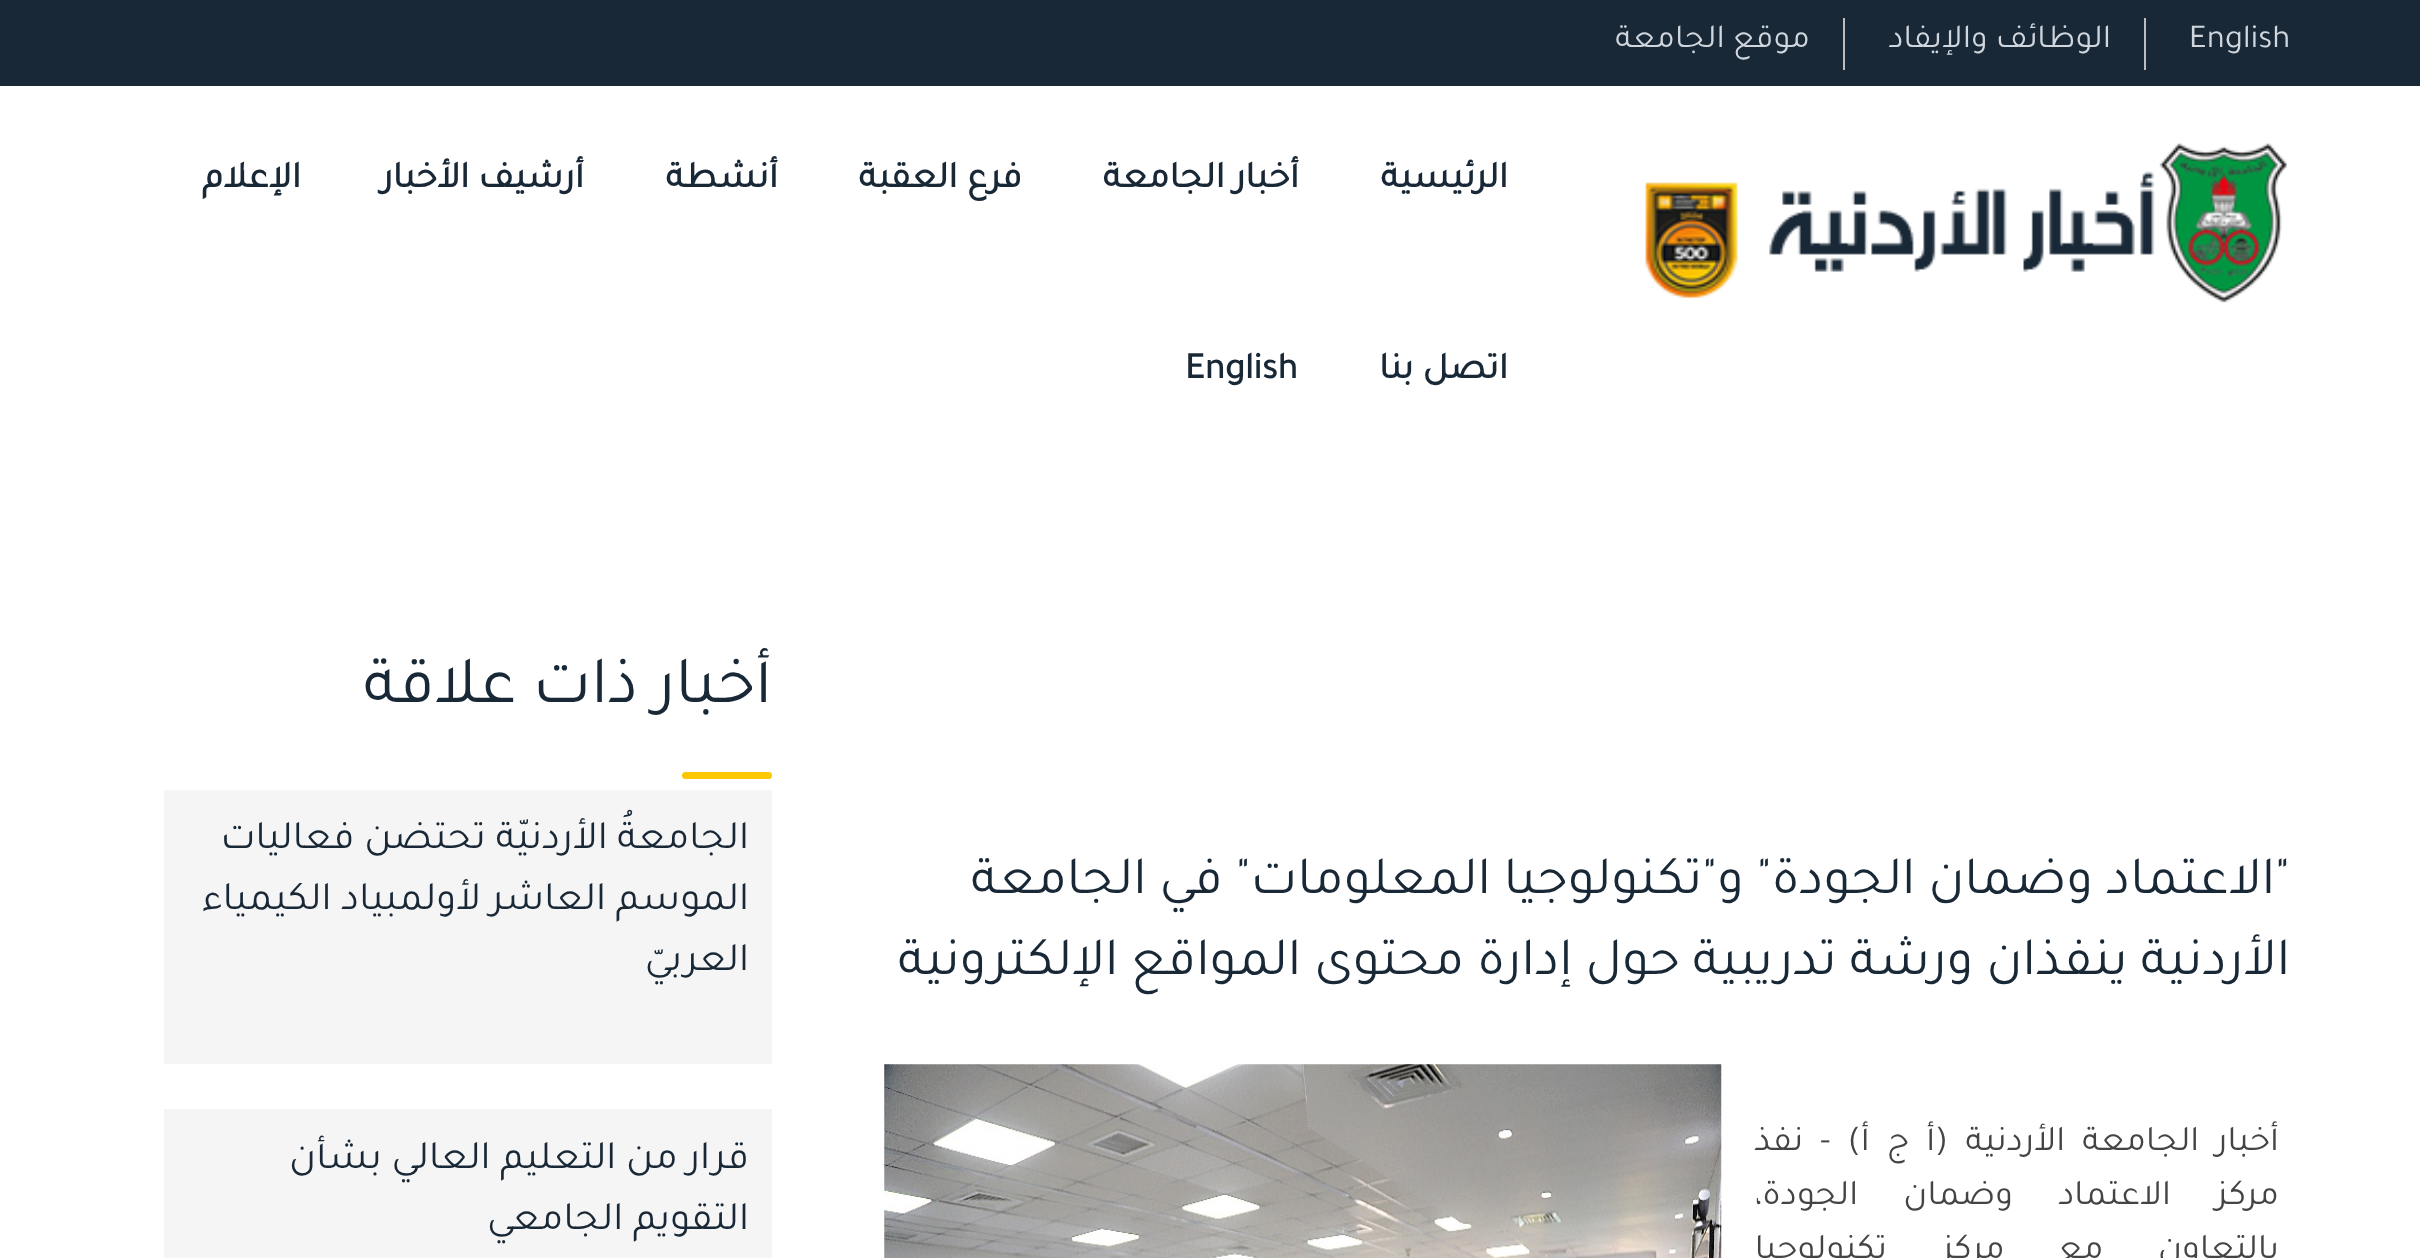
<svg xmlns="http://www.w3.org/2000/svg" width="2420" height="1258">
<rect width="100%" height="100%" fill="#fff"/>
<rect width="2420" height="86" fill="#192836"/>
<text x="2189" y="47" style="font-family:Tajawal;font-size:33.75px;fill:#d0d6dd">English</text>
<rect x="2144" y="18" width="2" height="52" fill="#bdbdbd"/>
<text x="2111" y="47" style="font-family:Tajawal;font-size:33.75px;direction:rtl;fill:#d0d6dd">الوظائف والإيفاد</text>
<rect x="1843" y="18" width="2" height="52" fill="#bdbdbd"/>
<text x="1810" y="47" style="font-family:Tajawal;font-size:33.75px;direction:rtl;fill:#d0d6dd">موقع الجامعة</text>
<image x="1645" y="143" width="642" height="160" href="media/1.png"/>
<text x="1508" y="187" style="font-family:Tajawal;font-size:37.5px;font-weight:bold;direction:rtl;fill:#192836">الرئيسية</text>
<text x="1299" y="187" style="font-family:Tajawal;font-size:37.5px;font-weight:bold;direction:rtl;fill:#192836">أخبار الجامعة</text>
<text x="1022" y="187" style="font-family:Tajawal;font-size:37.5px;font-weight:bold;direction:rtl;fill:#192836">فرع العقبة</text>
<text x="778" y="187" style="font-family:Tajawal;font-size:37.5px;font-weight:bold;direction:rtl;fill:#192836">أنشطة</text>
<text x="584" y="187" style="font-family:Tajawal;font-size:37.5px;font-weight:bold;direction:rtl;fill:#192836">أرشيف الأخبار</text>
<text x="301" y="187" style="font-family:Tajawal;font-size:37.5px;font-weight:bold;direction:rtl;fill:#192836">الإعلام</text>
<text x="1508" y="378" style="font-family:Tajawal;font-size:37.5px;font-weight:bold;direction:rtl;fill:#192836">اتصل بنا</text>
<text x="1185" y="378" style="font-family:Tajawal;font-size:37.5px;font-weight:bold;fill:#192836">English</text>
<text x="2290" y="893" style="font-family:Tajawal;font-size:54px;direction:rtl;fill:#192836">"الاعتماد وضمان الجودة" و"تكنولوجيا المعلومات" في الجامعة</text>
<text x="2290" y="974" style="font-family:Tajawal;font-size:54px;direction:rtl;fill:#192836">الأردنية ينفذان ورشة تدريبية حول إدارة محتوى المواقع الإلكترونية</text>
<text x="2279" y="1150" word-spacing="8.5" style="font-family:Tajawal;font-size:36px;direction:rtl;fill:#444">أخبار الجامعة الأردنية (أ ج أ) - نفذ</text>
<text x="2279" y="1204" word-spacing="36.5" style="font-family:Tajawal;font-size:36px;direction:rtl;fill:#444">مركز الاعتماد وضمان الجودة،</text>
<text x="2279" y="1258" word-spacing="46" style="font-family:Tajawal;font-size:36px;direction:rtl;fill:#444">بالتعاون مع مركز تكنولوجيا</text>
<image x="884" y="1064" width="838" height="194" href="media/2.png"/>
<text x="772" y="702" style="font-family:Tajawal;font-size:67.5px;direction:rtl;fill:#192836">أخبار ذات علاقة</text>
<rect x="682" y="772" width="90" height="7" rx="3.5" fill="#fdc800"/>
<rect x="164" y="790" width="608" height="274" fill="#f5f5f5"/>
<text x="749" y="848" style="font-family:Tajawal;font-size:40.5px;direction:rtl;fill:#192836">الجامعةُ الأردنيّة تحتضن فعاليات</text>
<text x="749" y="909" style="font-family:Tajawal;font-size:40.5px;direction:rtl;fill:#192836">الموسم العاشر لأولمبياد الكيمياء</text>
<text x="749" y="970" style="font-family:Tajawal;font-size:40.5px;direction:rtl;fill:#192836">العربيّ</text>
<rect x="164" y="1109" width="608" height="149" fill="#f5f5f5"/>
<text x="749" y="1168" style="font-family:Tajawal;font-size:40.5px;direction:rtl;fill:#192836">قرار من التعليم العالي بشأن</text>
<text x="749" y="1229" style="font-family:Tajawal;font-size:40.5px;direction:rtl;fill:#192836">التقويم الجامعي</text>
</svg>
